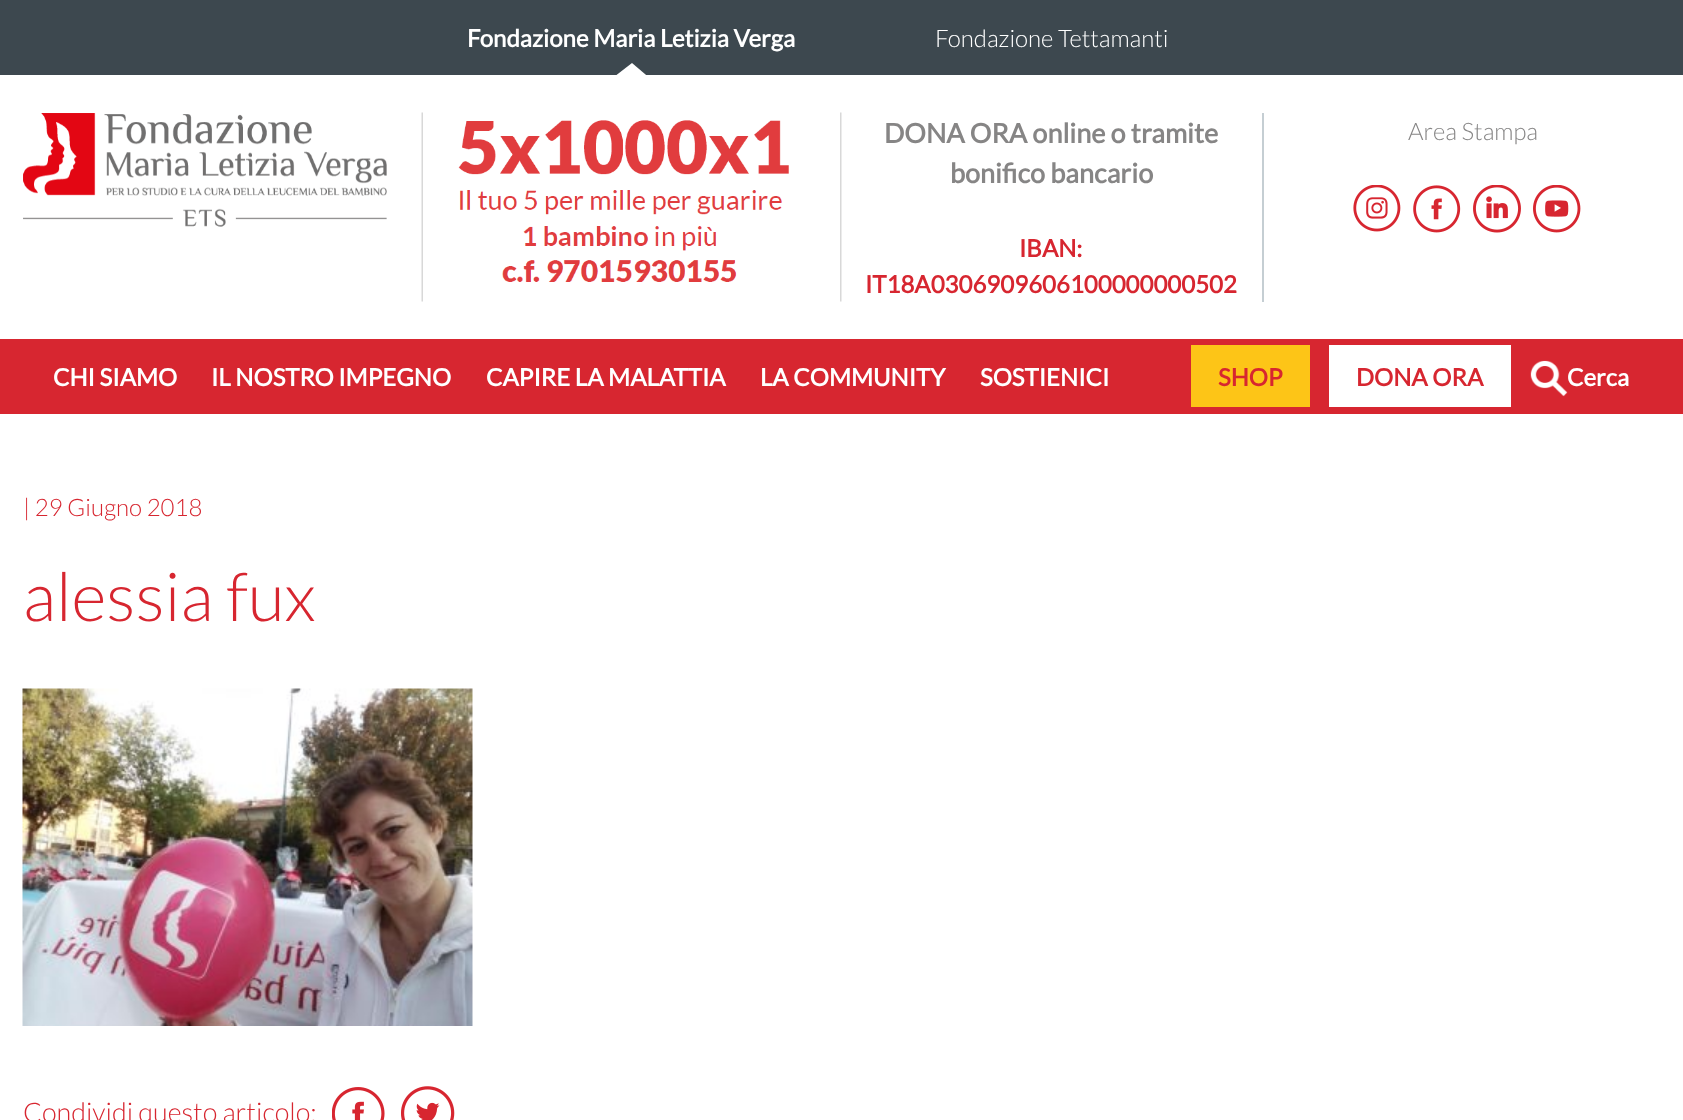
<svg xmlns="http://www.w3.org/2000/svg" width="1683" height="1120">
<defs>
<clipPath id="clip1"><rect x="611" y="63" width="42" height="12"/></clipPath>
</defs>
<rect width="100%" height="100%" fill="#fff"/>
<rect width="1683" height="75" fill="#3d484f"/>
<text x="467" y="47" style="font-family:Lato;font-size:24px;font-weight:bold;fill:#fff">Fondazione Maria Letizia Verga</text>
<g clip-path="url(#clip1)">
<path d="M632 63l20 17h-42z" fill="#fff" fill-rule="evenodd"/>
</g>
<text x="935" y="47" style="font-family:Lato;font-size:24px;font-weight:300;fill:#fff">Fondazione Tettamanti</text>
<image x="23" y="113" width="364" height="114" href="media/1.png"/>
<image x="421" y="112" width="421" height="190" href="media/2.png"/>
<image x="458" y="120" width="331" height="162" href="media/3.png"/>
<rect x="1262" y="113" width="2" height="189" fill="#c5ced3"/>
<text x="884" y="143" style="font-family:Lato;font-size:27px;font-weight:bold;fill:#868585">DONA ORA online o tramite</text>
<text x="950" y="183" style="font-family:Lato;font-size:27px;font-weight:bold;fill:#868585">bonifico bancario</text>
<text x="1019" y="257" style="font-family:Lato;font-size:24px;font-weight:bold;fill:#d72630">IBAN:</text>
<text x="865" y="293" style="font-family:Lato;font-size:24px;font-weight:bold;fill:#d72630">IT18A0306909606100000000502</text>
<text x="1408" y="140" style="font-family:Lato;font-size:24px;font-weight:300;fill:#868585">Area Stampa</text>
<image x="1353" y="185" width="48" height="47" href="media/4.png"/>
<image x="1413" y="185" width="48" height="48" href="media/5.png"/>
<image x="1473" y="185" width="48" height="48" href="media/6.png"/>
<image x="1533" y="185" width="48" height="48" href="media/7.png"/>
<rect y="339" width="1683" height="75" fill="#d72630"/>
<text x="53" y="386" style="font-family:Lato;font-size:24px;font-weight:bold;fill:#fff">CHI SIAMO</text>
<text x="211" y="386" style="font-family:Lato;font-size:24px;font-weight:bold;fill:#fff">IL NOSTRO IMPEGNO</text>
<text x="486" y="386" style="font-family:Lato;font-size:24px;font-weight:bold;fill:#fff">CAPIRE LA MALATTIA</text>
<text x="760" y="386" style="font-family:Lato;font-size:24px;font-weight:bold;fill:#fff">LA COMMUNITY</text>
<text x="980" y="386" style="font-family:Lato;font-size:24px;font-weight:bold;fill:#fff">SOSTIENICI</text>
<rect x="1191" y="345" width="119" height="62" fill="#fdc517"/>
<text x="1218" y="386" style="font-family:Lato;font-size:24px;font-weight:bold;fill:#d72630">SHOP</text>
<rect x="1329" y="345" width="182" height="62" fill="#fff"/>
<text x="1356" y="386" style="font-family:Lato;font-size:24px;font-weight:bold;fill:#d72630">DONA ORA</text>
<image x="1530" y="360" width="38" height="37" href="media/8.png"/>
<text x="1567" y="386" style="font-family:Lato;font-size:24px;font-weight:bold;fill:#fff">Cerca</text>
<text x="23" y="516" style="font-family:Lato;font-size:24px;font-weight:300;fill:#d72630">| 29 Giugno 2018</text>
<text x="23" y="621" style="font-family:Lato;font-size:67.5px;font-weight:300;fill:#d72630">alessia fux</text>
<image x="22" y="688" width="451" height="338" href="media/9.png"/>
<text x="23" y="1122" style="font-family:Lato;font-size:27px;font-weight:300;fill:#d72630">Condividi questo articolo:</text>
<image x="332" y="1087" width="53" height="33" href="media/10.png"/>
<image x="401" y="1086" width="54" height="34" href="media/11.png"/>
</svg>
